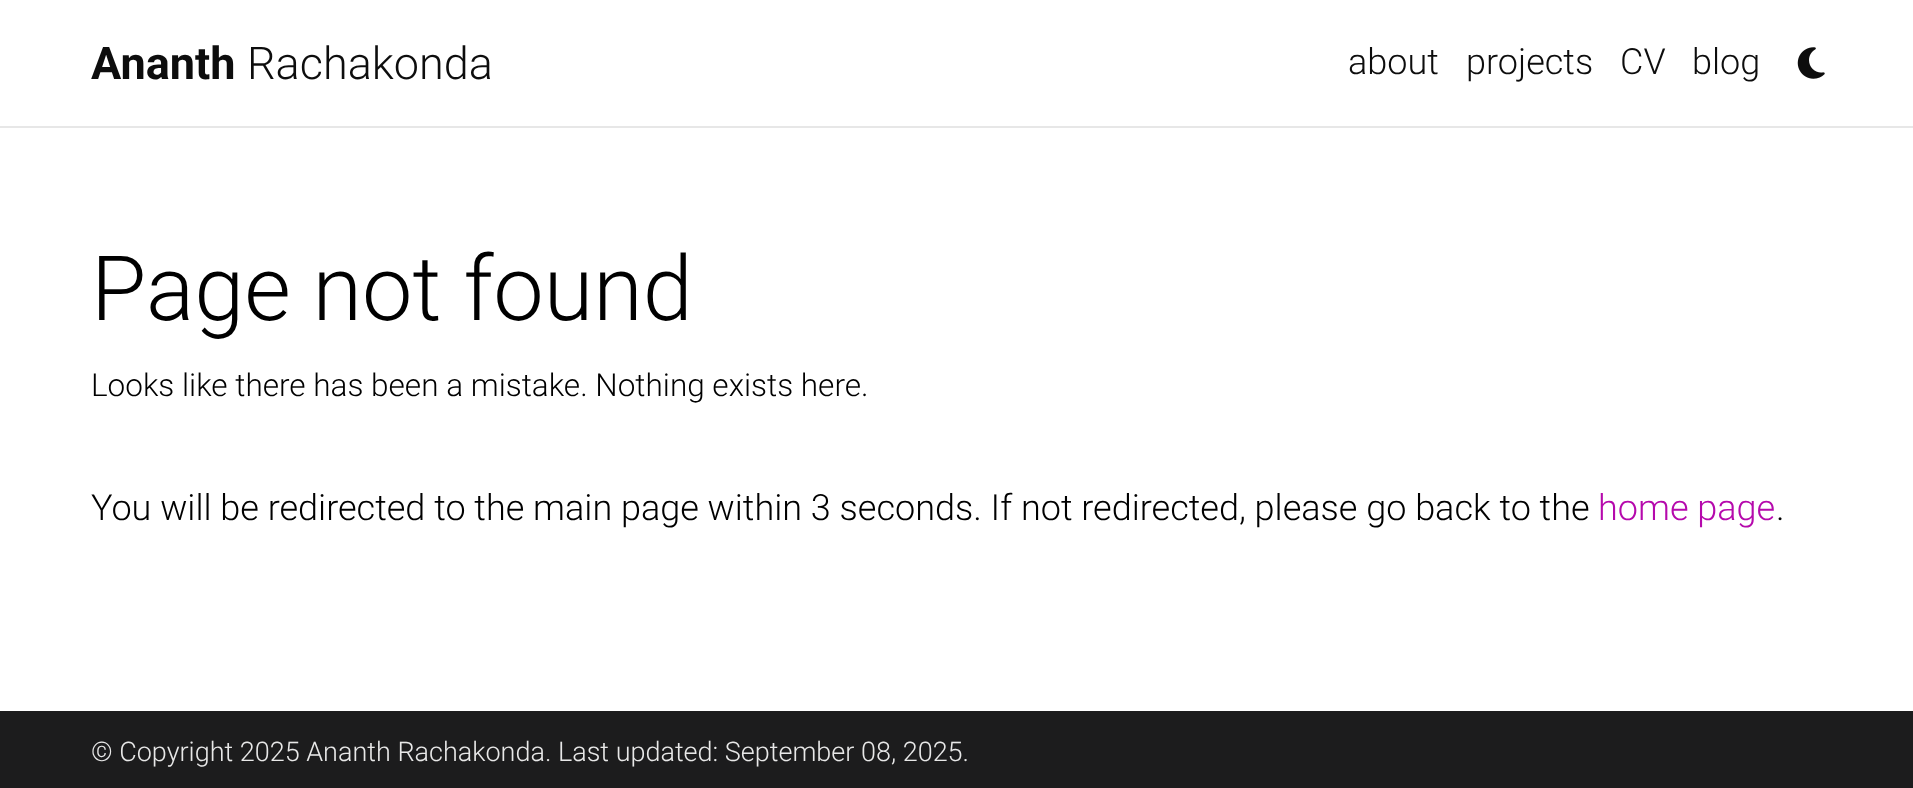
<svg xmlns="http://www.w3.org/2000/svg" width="1913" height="788">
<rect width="100%" height="100%" fill="#fff"/>
<rect y="126" width="1913" height="2" fill="#e7e7e7"/>
<text x="91" y="79" style="font-family:Roboto;font-size:45px;font-weight:bold;fill:#0d0d0d">Ananth</text>
<text x="247" y="79" style="font-family:Roboto;font-size:45px;font-weight:300;fill:#0d0d0d">Rachakonda</text>
<text x="1348" y="74" style="font-family:Roboto;font-size:36px;font-weight:300;fill:#0d0d0d">about</text>
<text x="1466" y="74" style="font-family:Roboto;font-size:36px;font-weight:300;fill:#0d0d0d">projects</text>
<text x="1620" y="74" style="font-family:Roboto;font-size:36px;font-weight:300;fill:#0d0d0d">CV</text>
<text x="1692" y="74" style="font-family:Roboto;font-size:36px;font-weight:300;fill:#0d0d0d">blog</text>
<image x="1797" y="47" width="28" height="32" href="media/1.png"/>
<text x="91" y="320" style="font-family:Roboto;font-size:90px;font-weight:300;fill:#000">Page not found</text>
<text x="91" y="396" style="font-family:Roboto;font-size:31.5px;font-weight:300;fill:#000">Looks like there has been a mistake. Nothing exists here.</text>
<text x="91" y="520" style="font-family:Roboto;font-size:36px;font-weight:300;fill:#000">You will be redirected to the main page within 3 seconds. If not redirected, please go back to the</text>
<text x="1598" y="520" style="font-family:Roboto;font-size:36px;font-weight:300;fill:#b509ac">home page</text>
<text x="1776" y="520" style="font-family:Roboto;font-size:36px;font-weight:300;fill:#000">.</text>
<rect y="711" width="1913" height="77" fill="#1c1c1d"/>
<text x="91" y="761" style="font-family:Roboto;font-size:27px;font-weight:300;fill:#e8e8e8">© Copyright 2025 Ananth Rachakonda. Last updated: September 08, 2025.</text>
</svg>
